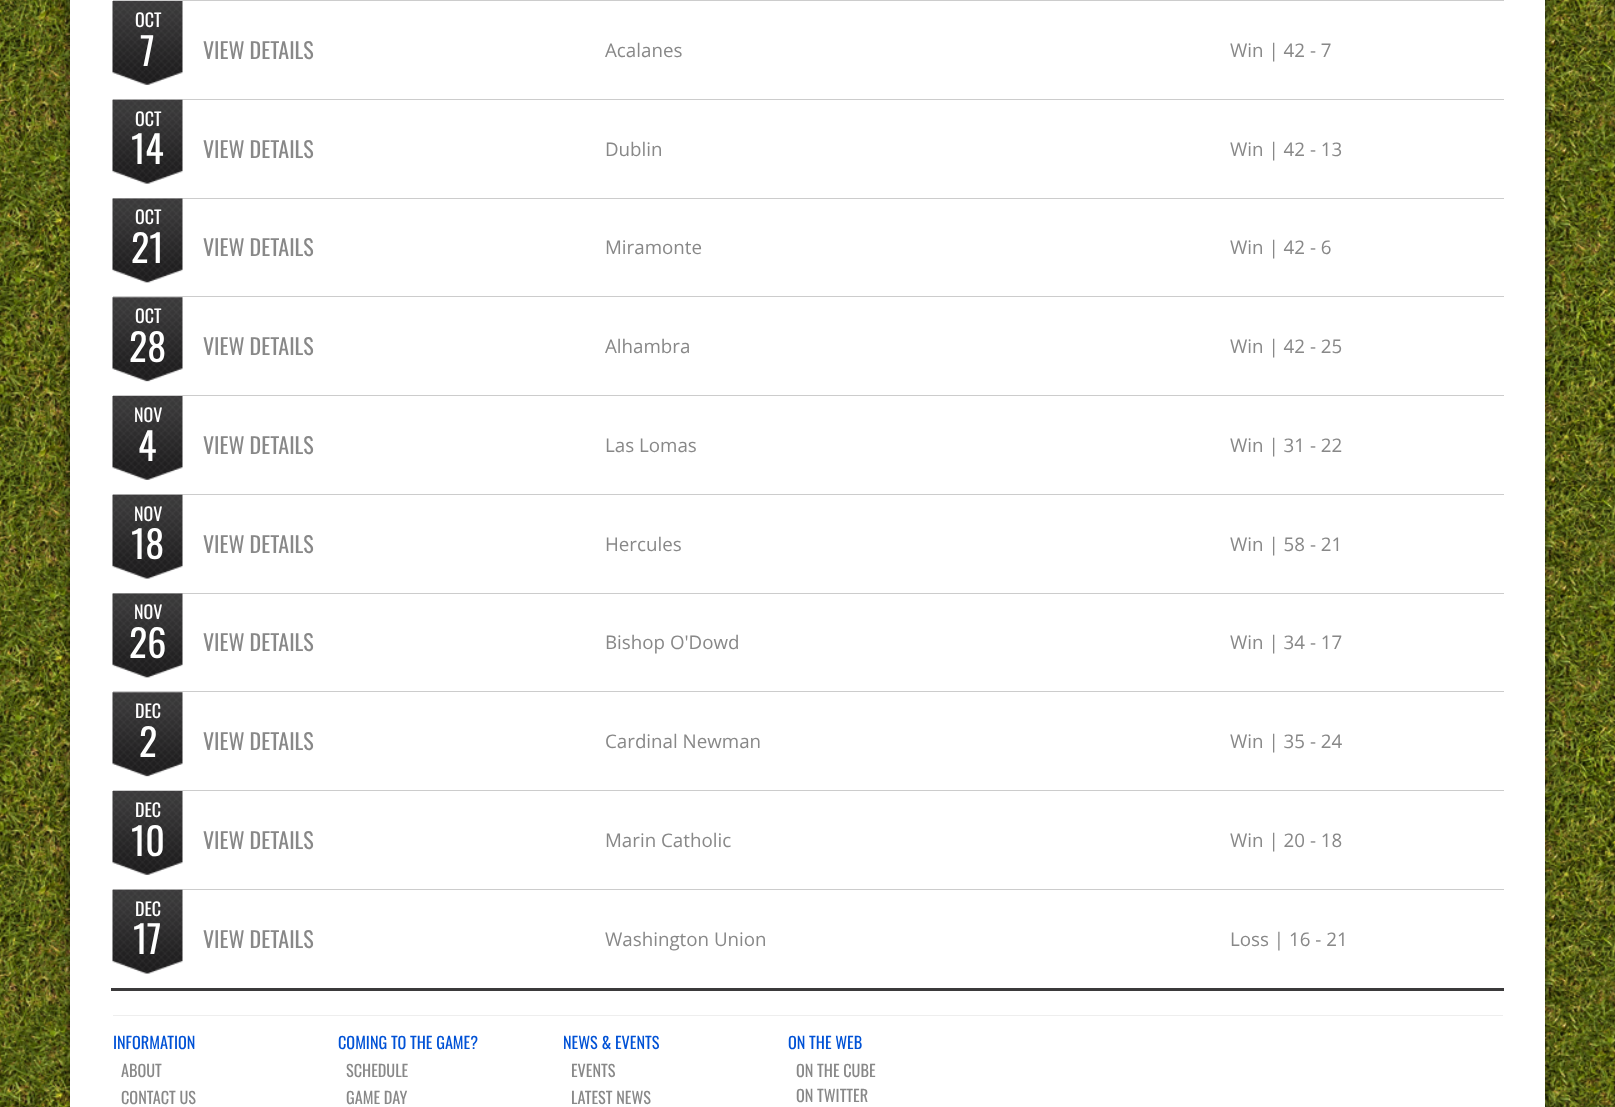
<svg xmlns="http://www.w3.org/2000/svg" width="1615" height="1107">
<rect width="100%" height="100%" fill="#fff"/>
<image x="0" y="0" width="1615" height="1107" href="media/1.png"/>
<rect x="70" y="-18" width="1475" height="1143" fill="#00000080" filter="blur(6px)"/>
<rect x="70" width="1475" height="1107" fill="#fff"/>
<rect x="113" width="1391" height="1" fill="#ccc"/>
<image x="112" y="1" width="71" height="84" href="media/2.png"/>
<text x="135" y="27" style="font-family:Oswald;font-size:18px;fill:#fff">OCT</text>
<text x="140" y="66" style="font-family:Oswald;font-size:38px;fill:#fff">7</text>
<text x="203" y="59" style="font-family:Oswald;font-size:22px;fill:#888">VIEW DETAILS</text>
<text x="605" y="57" style="font-family:Open Sans;font-size:18.75px;fill:#888">Acalanes</text>
<rect x="113" y="99" width="1391" height="1" fill="#ccc"/>
<text x="1230" y="57" style="font-family:Open Sans;font-size:18.75px;fill:#888">Win | 42 - 7</text>
<image x="112" y="99" width="71" height="85" href="media/3.png"/>
<text x="135" y="126" style="font-family:Oswald;font-size:18px;fill:#fff">OCT</text>
<text x="131" y="164" style="font-family:Oswald;font-size:38px;fill:#fff">14</text>
<text x="203" y="158" style="font-family:Oswald;font-size:22px;fill:#888">VIEW DETAILS</text>
<text x="605" y="156" style="font-family:Open Sans;font-size:18.75px;fill:#888">Dublin</text>
<rect x="113" y="198" width="1391" height="1" fill="#ccc"/>
<text x="1230" y="156" style="font-family:Open Sans;font-size:18.75px;fill:#888">Win | 42 - 13</text>
<image x="112" y="198" width="71" height="85" href="media/4.png"/>
<text x="135" y="224" style="font-family:Oswald;font-size:18px;fill:#fff">OCT</text>
<text x="131" y="263" style="font-family:Oswald;font-size:38px;fill:#fff">21</text>
<text x="203" y="256" style="font-family:Oswald;font-size:22px;fill:#888">VIEW DETAILS</text>
<text x="605" y="254" style="font-family:Open Sans;font-size:18.75px;fill:#888">Miramonte</text>
<rect x="113" y="296" width="1391" height="1" fill="#ccc"/>
<text x="1230" y="254" style="font-family:Open Sans;font-size:18.75px;fill:#888">Win | 42 - 6</text>
<image x="112" y="297" width="71" height="85" href="media/5.png"/>
<text x="135" y="323" style="font-family:Oswald;font-size:18px;fill:#fff">OCT</text>
<text x="129" y="362" style="font-family:Oswald;font-size:38px;fill:#fff">28</text>
<text x="203" y="355" style="font-family:Oswald;font-size:22px;fill:#888">VIEW DETAILS</text>
<text x="605" y="353" style="font-family:Open Sans;font-size:18.75px;fill:#888">Alhambra</text>
<rect x="113" y="395" width="1391" height="1" fill="#ccc"/>
<text x="1230" y="353" style="font-family:Open Sans;font-size:18.75px;fill:#888">Win | 42 - 25</text>
<image x="112" y="396" width="71" height="84" href="media/2.png"/>
<text x="134" y="422" style="font-family:Oswald;font-size:18px;fill:#fff">NOV</text>
<text x="138" y="461" style="font-family:Oswald;font-size:38px;fill:#fff">4</text>
<text x="203" y="454" style="font-family:Oswald;font-size:22px;fill:#888">VIEW DETAILS</text>
<text x="605" y="452" style="font-family:Open Sans;font-size:18.75px;fill:#888">Las Lomas</text>
<rect x="113" y="494" width="1391" height="1" fill="#ccc"/>
<text x="1230" y="452" style="font-family:Open Sans;font-size:18.75px;fill:#888">Win | 31 - 22</text>
<image x="112" y="494" width="71" height="85" href="media/6.png"/>
<text x="134" y="521" style="font-family:Oswald;font-size:18px;fill:#fff">NOV</text>
<text x="131" y="559" style="font-family:Oswald;font-size:38px;fill:#fff">18</text>
<text x="203" y="553" style="font-family:Oswald;font-size:22px;fill:#888">VIEW DETAILS</text>
<text x="605" y="551" style="font-family:Open Sans;font-size:18.75px;fill:#888">Hercules</text>
<rect x="113" y="593" width="1391" height="1" fill="#ccc"/>
<text x="1230" y="551" style="font-family:Open Sans;font-size:18.75px;fill:#888">Win | 58 - 21</text>
<image x="112" y="593" width="71" height="85" href="media/4.png"/>
<text x="134" y="619" style="font-family:Oswald;font-size:18px;fill:#fff">NOV</text>
<text x="129" y="658" style="font-family:Oswald;font-size:38px;fill:#fff">26</text>
<text x="203" y="651" style="font-family:Oswald;font-size:22px;fill:#888">VIEW DETAILS</text>
<text x="605" y="649" style="font-family:Open Sans;font-size:18.75px;fill:#888">Bishop O'Dowd</text>
<rect x="113" y="691" width="1391" height="1" fill="#ccc"/>
<text x="1230" y="649" style="font-family:Open Sans;font-size:18.75px;fill:#888">Win | 34 - 17</text>
<image x="112" y="692" width="71" height="85" href="media/5.png"/>
<text x="135" y="718" style="font-family:Oswald;font-size:18px;fill:#fff">DEC</text>
<text x="139" y="757" style="font-family:Oswald;font-size:38px;fill:#fff">2</text>
<text x="203" y="750" style="font-family:Oswald;font-size:22px;fill:#888">VIEW DETAILS</text>
<text x="605" y="748" style="font-family:Open Sans;font-size:18.75px;fill:#888">Cardinal Newman</text>
<rect x="113" y="790" width="1391" height="1" fill="#ccc"/>
<text x="1230" y="748" style="font-family:Open Sans;font-size:18.75px;fill:#888">Win | 35 - 24</text>
<image x="112" y="791" width="71" height="84" href="media/2.png"/>
<text x="135" y="817" style="font-family:Oswald;font-size:18px;fill:#fff">DEC</text>
<text x="131" y="856" style="font-family:Oswald;font-size:38px;fill:#fff">10</text>
<text x="203" y="849" style="font-family:Oswald;font-size:22px;fill:#888">VIEW DETAILS</text>
<text x="605" y="847" style="font-family:Open Sans;font-size:18.75px;fill:#888">Marin Catholic</text>
<rect x="113" y="889" width="1391" height="1" fill="#ccc"/>
<text x="1230" y="847" style="font-family:Open Sans;font-size:18.75px;fill:#888">Win | 20 - 18</text>
<image x="112" y="889" width="71" height="85" href="media/6.png"/>
<text x="135" y="916" style="font-family:Oswald;font-size:18px;fill:#fff">DEC</text>
<text x="133" y="954" style="font-family:Oswald;font-size:38px;fill:#fff">17</text>
<text x="203" y="948" style="font-family:Oswald;font-size:22px;fill:#888">VIEW DETAILS</text>
<text x="605" y="946" style="font-family:Open Sans;font-size:18.75px;fill:#888">Washington Union</text>
<rect x="111" y="988" width="1393" height="3" fill="#3b3a3b"/>
<text x="1230" y="946" style="font-family:Open Sans;font-size:18.75px;fill:#888">Loss | 16 - 21</text>
<rect x="113" y="1015" width="1390" height="1" fill="#eee"/>
<text x="113" y="1049" style="font-family:Oswald;font-size:16.25px;fill:#0052d6">INFORMATION</text>
<text x="121" y="1077" style="font-family:Oswald;font-size:16.25px;fill:#888">ABOUT</text>
<text x="121" y="1104" style="font-family:Oswald;font-size:16.25px;fill:#888">CONTACT US</text>
<text x="338" y="1049" style="font-family:Oswald;font-size:16.25px;fill:#0052d6">COMING TO THE GAME?</text>
<text x="346" y="1077" style="font-family:Oswald;font-size:16.25px;fill:#888">SCHEDULE</text>
<text x="346" y="1104" style="font-family:Oswald;font-size:16.25px;fill:#888">GAME DAY</text>
<text x="563" y="1049" style="font-family:Oswald;font-size:16.25px;fill:#0052d6">NEWS &amp; EVENTS</text>
<text x="571" y="1077" style="font-family:Oswald;font-size:16.25px;fill:#888">EVENTS</text>
<text x="571" y="1104" style="font-family:Oswald;font-size:16.25px;fill:#888">LATEST NEWS</text>
<text x="788" y="1049" style="font-family:Oswald;font-size:16.25px;fill:#0052d6">ON THE WEB</text>
<text x="796" y="1077" style="font-family:Oswald;font-size:16.25px;fill:#888">ON THE CUBE</text>
<text x="796" y="1102" style="font-family:Oswald;font-size:16.25px;fill:#888">ON TWITTER</text>
</svg>
